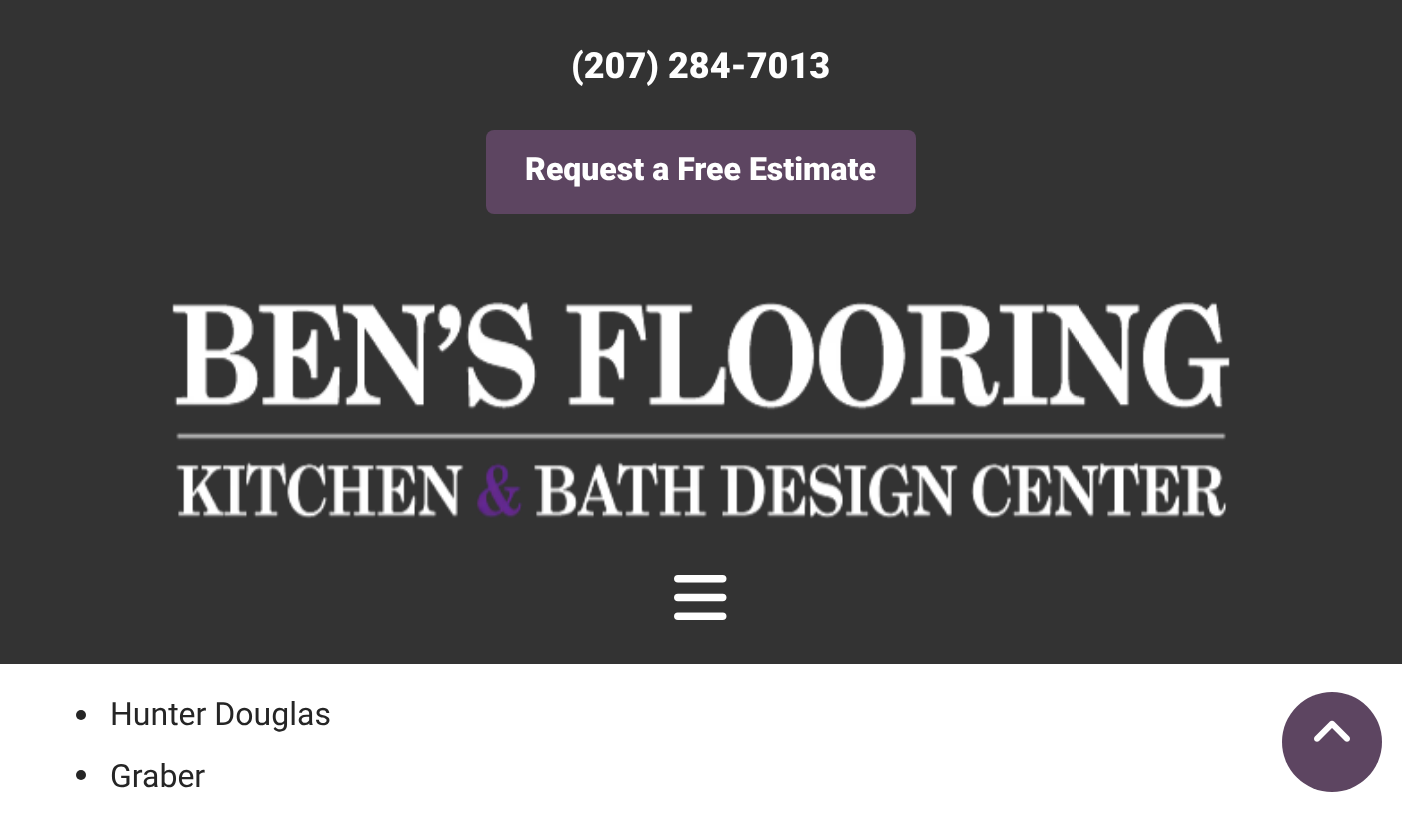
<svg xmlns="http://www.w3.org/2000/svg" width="1402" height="832">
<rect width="100%" height="100%" fill="#fff"/>
<rect width="1402" height="664" fill="#333"/>
<text x="571" y="78" style="font-family:Roboto;font-size:36px;font-weight:900;fill:#fff">(207) 284-7013</text>
<rect x="486" y="130" width="430" height="84" rx="8" fill="#5d4561"/>
<text x="525" y="180" style="font-family:Roboto;font-size:32px;font-weight:900;fill:#fff">Request a Free Estimate</text>
<image x="172" y="302" width="1058" height="217" href="media/1.png"/>
<image x="674" y="575" width="53" height="45" href="media/2.png"/>
<circle cx="81" cy="715" r="5" fill="#252525"/>
<text x="110" y="725" style="font-family:Roboto;font-size:32px;fill:#252525">Hunter Douglas</text>
<circle cx="81" cy="775" r="5" fill="#252525"/>
<text x="110" y="787" style="font-family:Roboto;font-size:32px;fill:#252525">Graber</text>
<circle cx="1332" cy="742" r="50" fill="#5d4561"/>
<image x="1314" y="720" width="36" height="22" href="media/3.png"/>
</svg>
